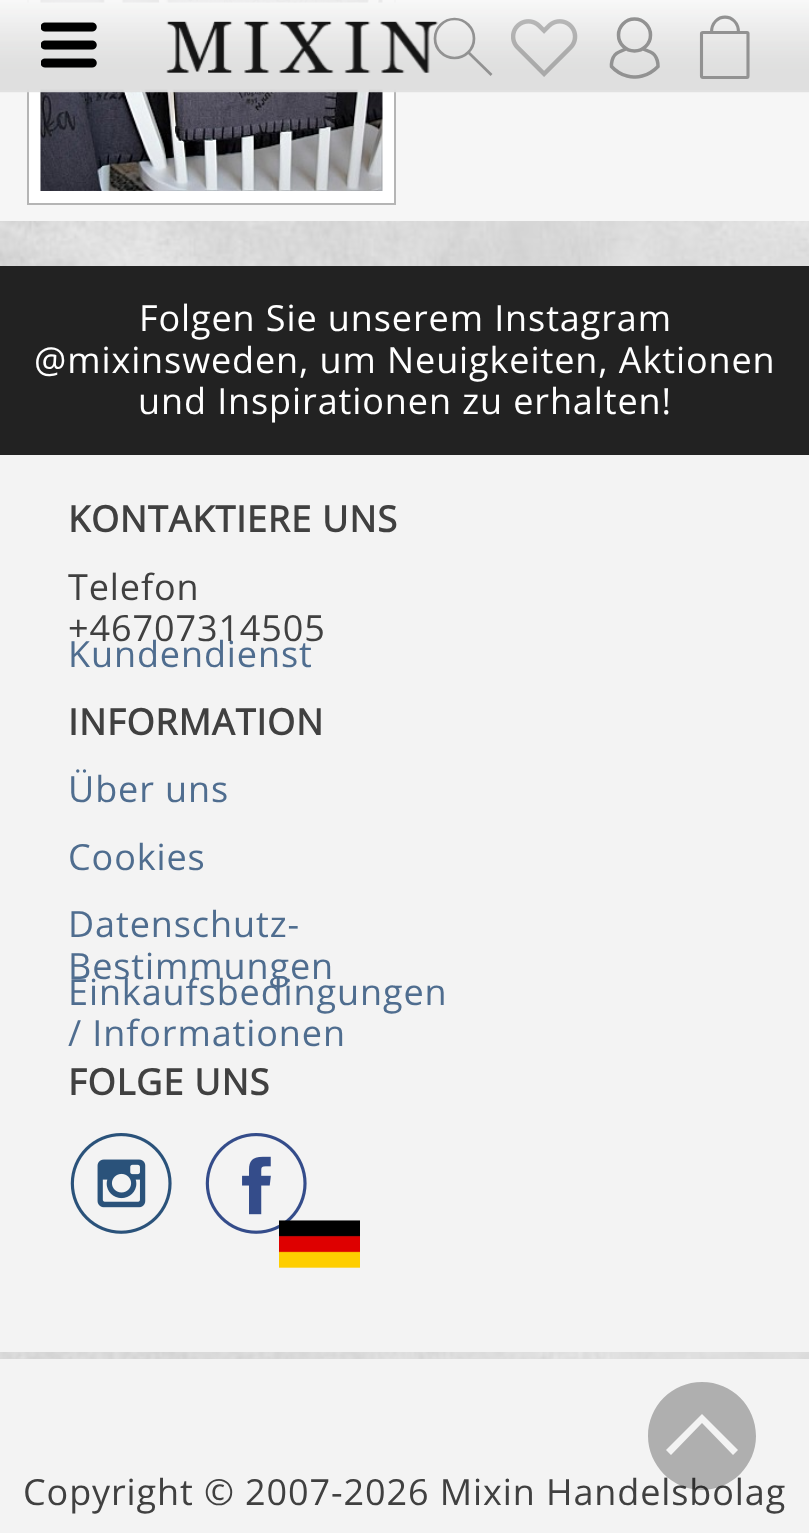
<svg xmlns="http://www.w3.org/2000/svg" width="809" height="1533">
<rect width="100%" height="100%" fill="#fff"/>
<image x="0" y="1352" width="809" height="7" href="media/1.png"/>
<rect width="809" height="221" fill="#f6f6f6"/>
<rect x="28" y="-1" width="367" height="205" fill="#fff" stroke="#b5b5b5" stroke-width="2"/>
<image x="40" y="0" width="343" height="191" href="media/7.png"/>
<image x="0" y="0" width="809" height="93" href="media/2.png"/>
<image x="41" y="22" width="56" height="46" href="media/3.png"/>
<circle cx="454.5" cy="38.5" r="19.5" fill="none" stroke="#929292" stroke-width="2.7"/>
<image x="166" y="21" width="273" height="52" href="media/4.png"/>
<path d="M468.5 52.5l23 22.5" fill="none" stroke="#929292" stroke-width="2.7"/>
<image x="511" y="19" width="67" height="58" href="media/5.png"/>
<circle cx="634.5" cy="35" r="16" fill="none" stroke="#929292" stroke-width="3.5"/>
<path d="M634.5 77c0 0 12.5 1 23.5-10.5c0 0 .5-11-7.5-14.5l-6-2.5l-.5-2m-9 29.5c0 0-13 1-23.5-10.5c0 0-1-11 7.5-14.5l5.5-2.5l.5-2" fill="none" stroke="#929292" stroke-width="3.5"/>
<path d="M747 77.5h-44c-1 0-1.5-.5-1.5-1.5v-42.5c0-.5 .5-1 1.5-1h44c.5 0 1 .5 1 1v42.5c0 1-.5 1.5-1 1.5z" fill="none" stroke="#929292" stroke-width="3.1"/>
<path d="M711.5 32.5c0-20.5 27-20.5 27 0" fill="none" stroke="#929292" stroke-width="3.1"/>
<image x="0" y="221" width="809" height="45" href="media/6.png"/>
<rect y="266" width="809" height="189" fill="#222"/>
<text x="139" y="331" style="font-family:Open Sans;font-size:36px;letter-spacing:0.9px;fill:#fff">Folgen Sie unserem Instagram</text>
<text x="34" y="373" style="font-family:Open Sans;font-size:36px;letter-spacing:0.9px;fill:#fff">@mixinsweden, um Neuigkeiten, Aktionen</text>
<text x="138" y="414" style="font-family:Open Sans;font-size:36px;letter-spacing:0.9px;fill:#fff">und Inspirationen zu erhalten!</text>
<rect y="455" width="809" height="897" fill="#f3f3f3"/>
<text x="68" y="532" style="font-family:Open Sans;font-size:36px;font-weight:bold;letter-spacing:0.9px;fill:#404040">KONTAKTIERE UNS</text>
<text x="68" y="600" style="font-family:Open Sans;font-size:36px;letter-spacing:0.9px;fill:#404040">Telefon</text>
<text x="68" y="641" style="font-family:Open Sans;font-size:36px;letter-spacing:0.9px;fill:#404040">+46707314505</text>
<text x="68" y="667" style="font-family:Open Sans;font-size:36px;letter-spacing:0.9px;fill:#4f6d8f">Kundendienst</text>
<text x="68" y="735" style="font-family:Open Sans;font-size:36px;font-weight:bold;letter-spacing:0.9px;fill:#404040">INFORMATION</text>
<text x="68" y="802" style="font-family:Open Sans;font-size:36px;letter-spacing:0.9px;fill:#4f6d8f">Über uns</text>
<text x="68" y="870" style="font-family:Open Sans;font-size:36px;letter-spacing:0.9px;fill:#4f6d8f">Cookies</text>
<text x="68" y="937" style="font-family:Open Sans;font-size:36px;letter-spacing:0.9px;fill:#4f6d8f">Datenschutz-</text>
<text x="68" y="979" style="font-family:Open Sans;font-size:36px;letter-spacing:0.9px;fill:#4f6d8f">Bestimmungen</text>
<text x="68" y="1005" style="font-family:Open Sans;font-size:36px;letter-spacing:0.9px;fill:#4f6d8f">Einkaufsbedingungen</text>
<text x="68" y="1046" style="font-family:Open Sans;font-size:36px;letter-spacing:0.9px;fill:#4f6d8f">/ Informationen</text>
<text x="68" y="1095" style="font-family:Open Sans;font-size:36px;font-weight:bold;letter-spacing:0.9px;fill:#404040">FOLGE UNS</text>
<image x="70" y="1133" width="102" height="101" href="media/8.png"/>
<image x="205" y="1133" width="102" height="101" href="media/9.png"/>
<image x="279" y="1220" width="81" height="48" href="media/10.png"/>
<rect y="1359" width="809" height="174" fill="#f3f3f3"/>
<text x="23" y="1505" style="font-family:Open Sans;font-size:36px;letter-spacing:0.9px;fill:#404040">Copyright © 2007-2026 Mixin Handelsbolag</text>
<path d="M702 1382c-30 0-54 24-54 54c0 29 24 54 54 54c30 0 54-25 54-54c0-30-24-54-54-54zm31 73l-31-32l-31 32l-5-5l36-36l36 36z" fill="#00000047"/>
</svg>
